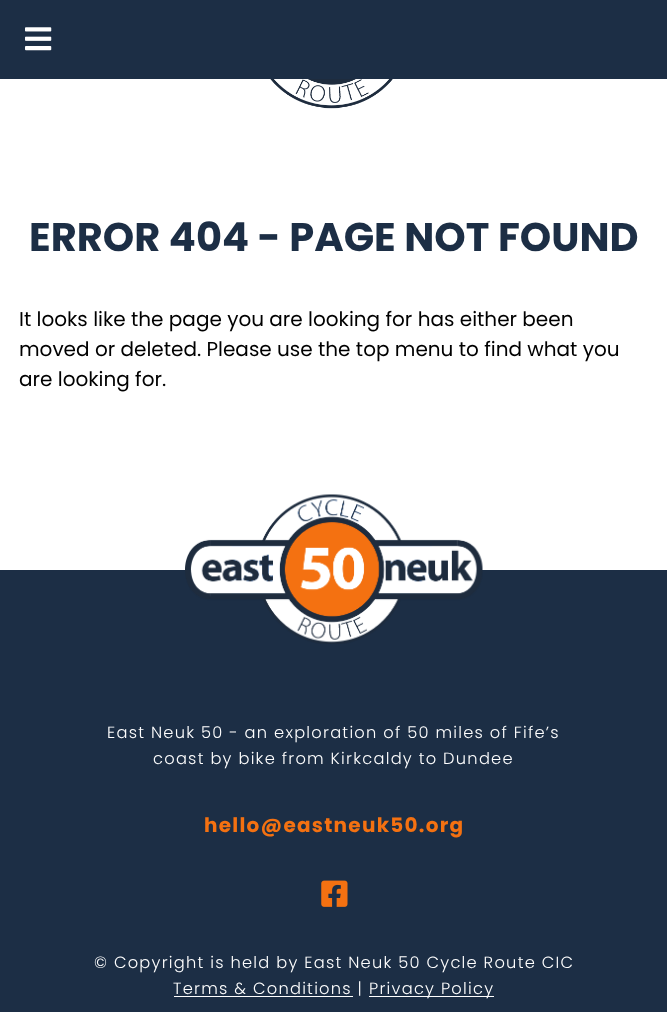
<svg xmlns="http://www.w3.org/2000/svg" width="667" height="1012">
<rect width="100%" height="100%" fill="#fff"/>
<rect width="667" height="79" fill="#1c2e45"/>
<image x="25" y="27" width="27" height="24" href="media/1.png"/>
<image x="270" y="79" width="123" height="30" href="media/2.png"/>
<text x="29" y="251" style="font-family:Poppins;font-size:40px;font-weight:bold;fill:#1c2e45">ERROR 404 - PAGE NOT FOUND</text>
<text x="19" y="326" style="font-family:Poppins;font-size:20px;fill:#000">It looks like the page you are looking for has either been</text>
<text x="19" y="356" style="font-family:Poppins;font-size:20px;fill:#000">moved or deleted. Please use the top menu to find what you</text>
<text x="19" y="386" style="font-family:Poppins;font-size:20px;fill:#000">are looking for.</text>
<rect y="570" width="667" height="442" fill="#1c2e45"/>
<image x="185" y="494" width="298" height="150" href="media/3.png"/>
<text x="107" y="738" style="font-family:Poppins;font-size:16.25px;font-weight:300;letter-spacing:1.25px;fill:#fff">East Neuk 50 - an exploration of 50 miles of Fife’s</text>
<text x="153" y="764" style="font-family:Poppins;font-size:16.25px;font-weight:300;letter-spacing:1.25px;fill:#fff">coast by bike from Kirkcaldy to Dundee</text>
<text x="204" y="832" style="font-family:Poppins;font-size:20px;font-weight:bold;letter-spacing:1.25px;fill:#f47111">hello@eastneuk50.org</text>
<image x="321" y="880" width="27" height="27" href="media/4.png"/>
<text x="94" y="968" style="font-family:Poppins;font-size:16.25px;font-weight:300;letter-spacing:1.25px;fill:#fff">© Copyright is held by East Neuk 50 Cycle Route CIC</text>
<text x="173" y="994" style="font-family:Poppins;font-size:16.25px;font-weight:300;letter-spacing:1.25px;fill:#fff">Terms &amp; Conditions |</text>
<rect x="174" y="996" width="179" height="1" fill="#fff"/>
<rect x="369" y="996" width="125" height="1" fill="#fff"/>
<text x="369" y="994" style="font-family:Poppins;font-size:16.25px;font-weight:300;letter-spacing:1.25px;fill:#fff">Privacy Policy</text>
</svg>
